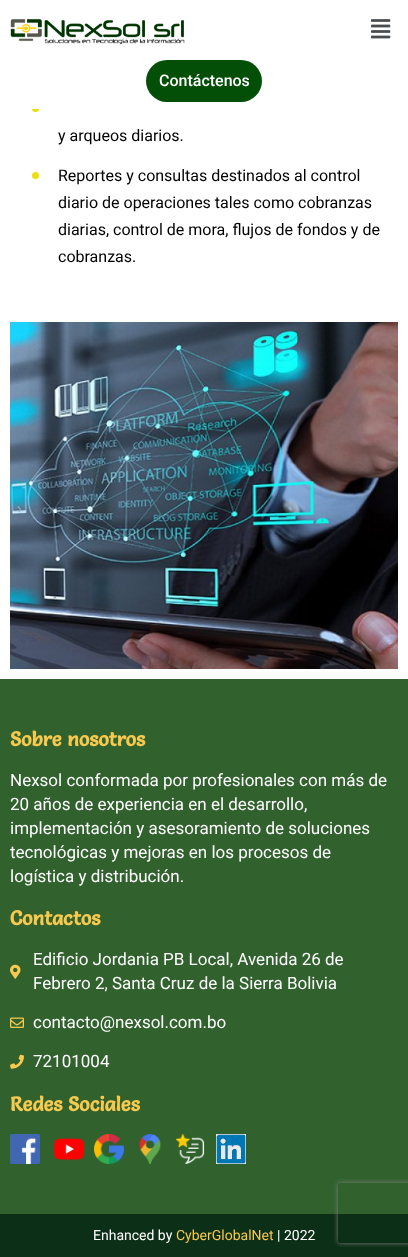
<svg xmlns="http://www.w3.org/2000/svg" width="408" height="1257">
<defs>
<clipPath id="clip1"><path d="M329 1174h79v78h-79zm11 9h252c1 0 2 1 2 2v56c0 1-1 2-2 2h-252c-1 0-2-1-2-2v-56c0-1 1-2 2-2z" clip-rule="evenodd"/></clipPath>
</defs>
<rect width="100%" height="100%" fill="#fff"/>
<circle cx="35.5" cy="108.5" r="3.5" fill="#ecde0b"/>
<rect x="32" y="105" width="7" height="4" fill="#fff"/>
<image x="10" y="18" width="175" height="27" href="media/1.png"/>
<image x="371" y="19" width="20" height="20" href="media/2.png"/>
<rect x="146" y="60" width="116" height="42" rx="21" fill="#044f07"/>
<text x="159" y="86" style="font-family:Roboto;font-size:16px;font-weight:500;fill:#fff">Contáctenos</text>
<text x="58" y="141" style="font-family:Roboto;font-size:16px;fill:#000">y arqueos diarios.</text>
<circle cx="35.5" cy="175.5" r="3.5" fill="#ecde0b"/>
<text x="58" y="181" style="font-family:Roboto;font-size:16px;fill:#000">Reportes y consultas destinados al control</text>
<text x="58" y="208" style="font-family:Roboto;font-size:16px;fill:#000">diario de operaciones tales como cobranzas</text>
<text x="58" y="235" style="font-family:Roboto;font-size:16px;fill:#000">diarias, control de mora, flujos de fondos y de</text>
<text x="58" y="262" style="font-family:Roboto;font-size:16px;fill:#000">cobranzas.</text>
<image x="10" y="322" width="388" height="347" href="media/3.png"/>
<rect y="679" width="408" height="535" fill="#31622e"/>
<text x="10" y="746" style="font-family:Salsa;font-size:20px;font-weight:bold;fill:#f7c94e">Sobre nosotros</text>
<text x="10" y="786" style="font-family:Roboto;font-size:17px;fill:#fff">Nexsol conformada por profesionales con más de</text>
<text x="10" y="810" style="font-family:Roboto;font-size:17px;fill:#fff">20 años de experiencia en el desarrollo,</text>
<text x="10" y="834" style="font-family:Roboto;font-size:17px;fill:#fff">implementación y asesoramiento de soluciones</text>
<text x="10" y="858" style="font-family:Roboto;font-size:17px;fill:#fff">tecnológicas y mejoras en los procesos de</text>
<text x="10" y="882" style="font-family:Roboto;font-size:17px;fill:#fff">logística y distribución.</text>
<text x="10" y="925" style="font-family:Salsa;font-size:20px;font-weight:bold;fill:#f7c94e">Contactos</text>
<image x="10" y="964" width="11" height="15" href="media/4.png"/>
<text x="33" y="965" style="font-family:Roboto;font-size:17px;fill:#fff">Edificio Jordania PB Local, Avenida 26 de</text>
<text x="33" y="989" style="font-family:Roboto;font-size:17px;fill:#fff">Febrero 2, Santa Cruz de la Sierra Bolivia</text>
<image x="10" y="1017" width="14" height="11" href="media/5.png"/>
<text x="33" y="1028" style="font-family:Roboto;font-size:17px;fill:#fff">contacto@nexsol.com.bo</text>
<image x="10" y="1054" width="14" height="15" href="media/6.png"/>
<text x="33" y="1067" style="font-family:Roboto;font-size:17px;fill:#fff">72101004</text>
<text x="10" y="1111" style="font-family:Salsa;font-size:20px;font-weight:bold;fill:#f7c94e">Redes Sociales</text>
<image x="10" y="1134" width="30" height="30" href="media/7.png"/>
<image x="54" y="1137" width="30" height="24" href="media/8.png"/>
<image x="94" y="1134" width="30" height="30" href="media/9.png"/>
<image x="138" y="1134" width="23" height="30" href="media/10.png"/>
<image x="175" y="1134" width="30" height="30" href="media/11.png"/>
<image x="216" y="1134" width="30" height="30" href="media/12.png"/>
<rect y="1214" width="408" height="43" fill="#0c2f17"/>
<text x="93" y="1240" style="font-family:Roboto;font-size:14px;fill:#fff">Enhanced by</text>
<text x="176" y="1240" style="font-family:Roboto;font-size:14px;fill:#f7c94e">CyberGlobalNet</text>
<text x="277" y="1240" style="font-family:Roboto;font-size:14px;fill:#fff">| 2022</text>
<g clip-path="url(#clip1)">
<rect x="338" y="1183" width="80" height="60" rx="2" fill="#808080" filter="blur(2.5px)"/>
</g>
</svg>
